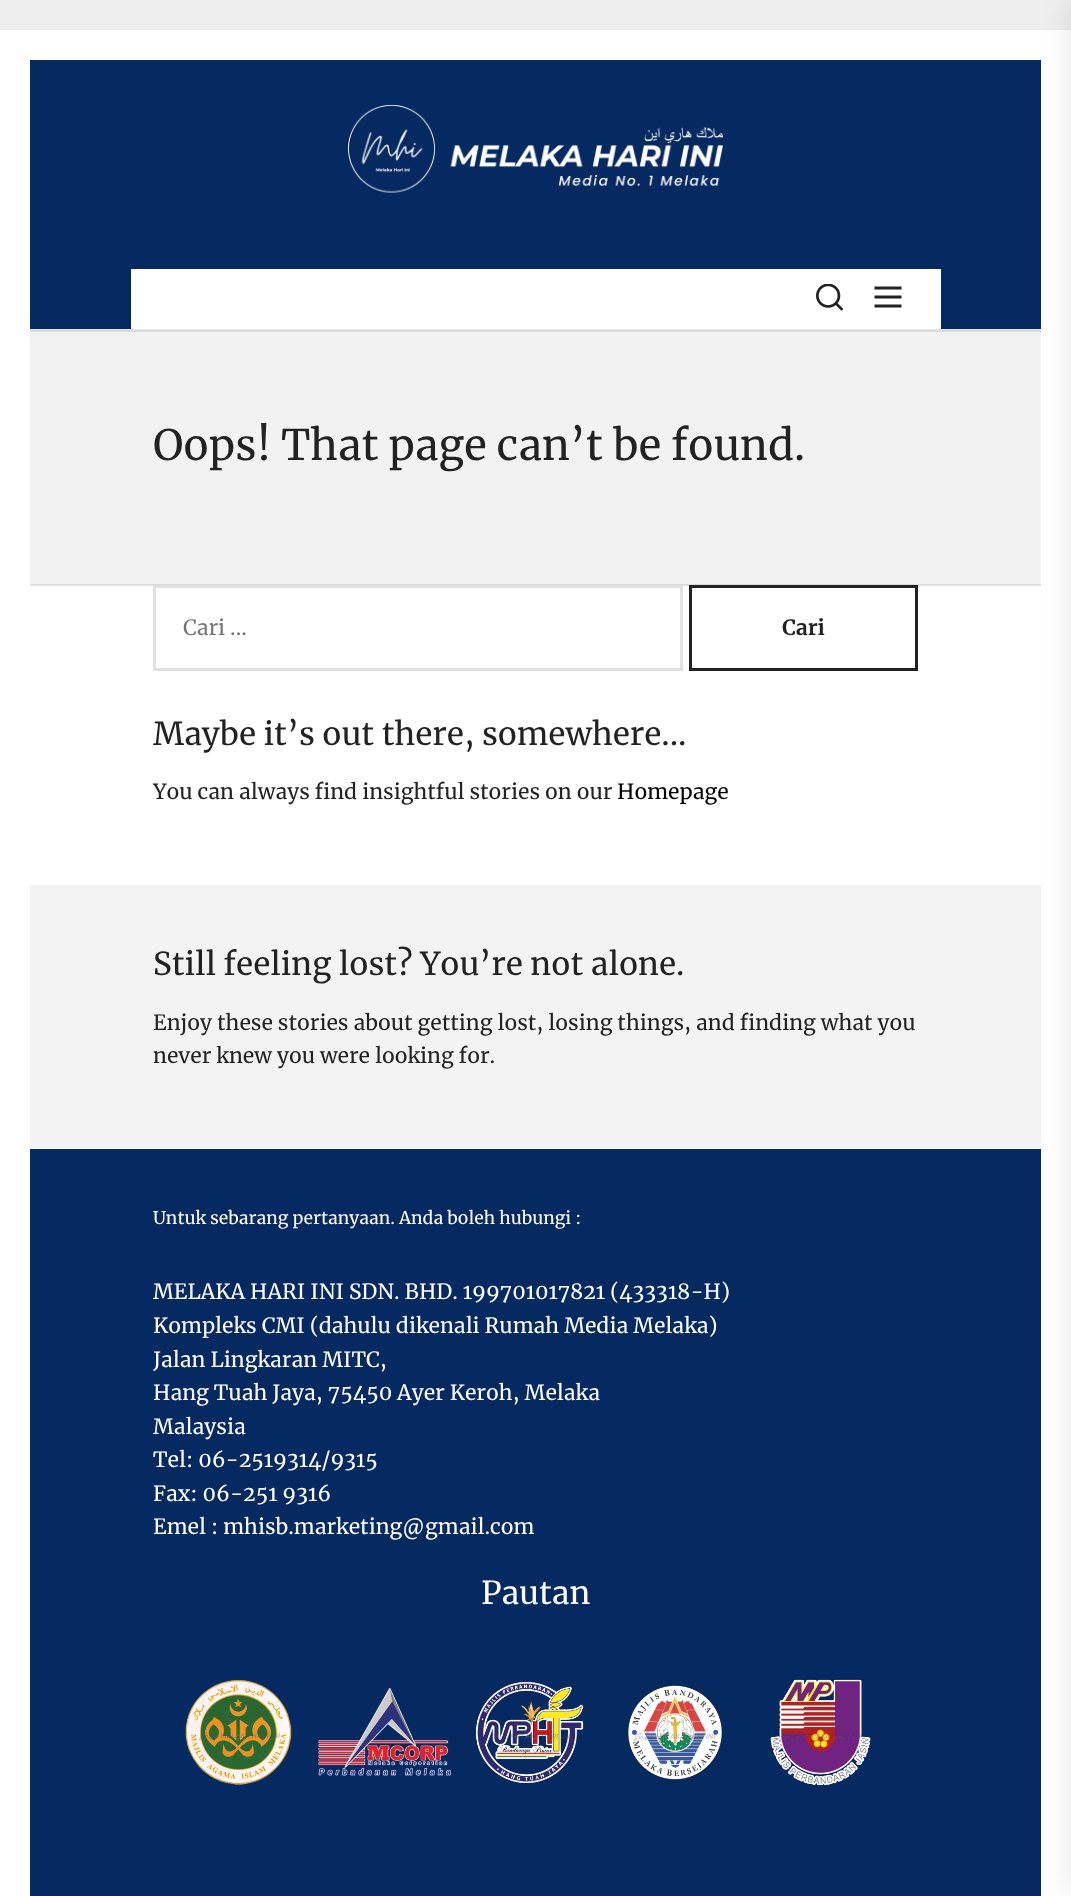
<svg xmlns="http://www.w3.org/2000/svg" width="1071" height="1896">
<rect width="100%" height="100%" fill="#eee"/>
<rect y="30" width="1071" height="1866" fill="#fff"/>
<rect x="30" y="585" width="1011" height="1" fill="#e6e6e6"/>
<rect x="30" y="60" width="1011" height="269" fill="#052961"/>
<image x="348" y="105" width="375" height="88" href="media/1.png"/>
<rect x="131" y="269" width="810" height="60" fill="#fff"/>
<image x="816" y="284" width="27" height="27" href="media/2.png"/>
<image x="874" y="286" width="28" height="22" href="media/3.png"/>
<rect x="30" y="329" width="1011" height="1" fill="#e6e6e6"/>
<rect x="30" y="332" width="1011" height="252" fill="#f2f2f2"/>
<rect x="30" y="584" width="1011" height="1" fill="#dadada"/>
<rect x="30" y="330" width="1011" height="2" fill="#dadada"/>
<rect x="30" y="885" width="1011" height="264" fill="#f3f3f3"/>
<rect x="30" y="1149" width="1011" height="747" fill="#052961"/>
<rect x="1071" width="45" height="1896" fill="#0000001a" filter="blur(15px)"/>
<text x="153" y="460" style="font-family:Merriweather;font-size:42px;fill:#222">Oops! That page can’t be found.</text>
<rect x="154.5" y="586.5" width="527" height="83" fill="none" stroke="#e1e1e3" stroke-width="3"/>
<text x="183" y="635" style="font-family:Merriweather;font-size:21px;fill:#757575">Cari ...</text>
<rect x="690.5" y="586.5" width="226" height="83" fill="none" stroke="#222" stroke-width="3"/>
<text x="782" y="635" style="font-family:Merriweather;font-size:21px;font-weight:bold;fill:#222">Cari</text>
<text x="153" y="745" style="font-family:Merriweather;font-size:31.5px;fill:#222">Maybe it’s out there, somewhere...</text>
<text x="153" y="799" style="font-family:Merriweather;font-size:21px;fill:#222">You can always find insightful stories on our</text>
<text x="617" y="799" style="font-family:Merriweather;font-size:21px;fill:#000">Homepage</text>
<text x="153" y="975" style="font-family:Merriweather;font-size:31.5px;fill:#222">Still feeling lost? You’re not alone.</text>
<text x="153" y="1030" style="font-family:Merriweather;font-size:21px;fill:#222">Enjoy these stories about getting lost, losing things, and finding what you</text>
<text x="153" y="1063" style="font-family:Merriweather;font-size:21px;fill:#222">never knew you were looking for.</text>
<text x="153" y="1224" style="font-family:Merriweather;font-size:17.4px;fill:#fff">Untuk sebarang pertanyaan. Anda boleh hubungi :</text>
<text x="153" y="1299" style="font-family:Merriweather;font-size:21px;fill:#fff">MELAKA HARI INI SDN. BHD. 199701017821 (433318-H)</text>
<text x="153" y="1333" style="font-family:Merriweather;font-size:21px;fill:#fff">Kompleks CMI (dahulu dikenali Rumah Media Melaka)</text>
<text x="153" y="1367" style="font-family:Merriweather;font-size:21px;fill:#fff">Jalan Lingkaran MITC,</text>
<text x="153" y="1400" style="font-family:Merriweather;font-size:21px;fill:#fff">Hang Tuah Jaya, 75450 Ayer Keroh, Melaka</text>
<text x="153" y="1434" style="font-family:Merriweather;font-size:21px;fill:#fff">Malaysia</text>
<text x="153" y="1467" style="font-family:Merriweather;font-size:21px;fill:#fff">Tel: 06-2519314/9315</text>
<text x="153" y="1501" style="font-family:Merriweather;font-size:21px;fill:#fff">Fax: 06-251 9316</text>
<text x="153" y="1534" style="font-family:Merriweather;font-size:21px;fill:#fff">Emel : mhisb.marketing@gmail.com</text>
<text x="481" y="1604" style="font-family:Merriweather;font-size:31.5px;fill:#fff">Pautan</text>
<image x="185" y="1679" width="107" height="106" href="media/4.png"/>
<image x="318" y="1687" width="134" height="89" href="media/5.png"/>
<image x="475" y="1682" width="109" height="101" href="media/6.png"/>
<image x="627" y="1685" width="96" height="95" href="media/7.png"/>
<image x="770" y="1679" width="101" height="107" href="media/8.png"/>
</svg>
